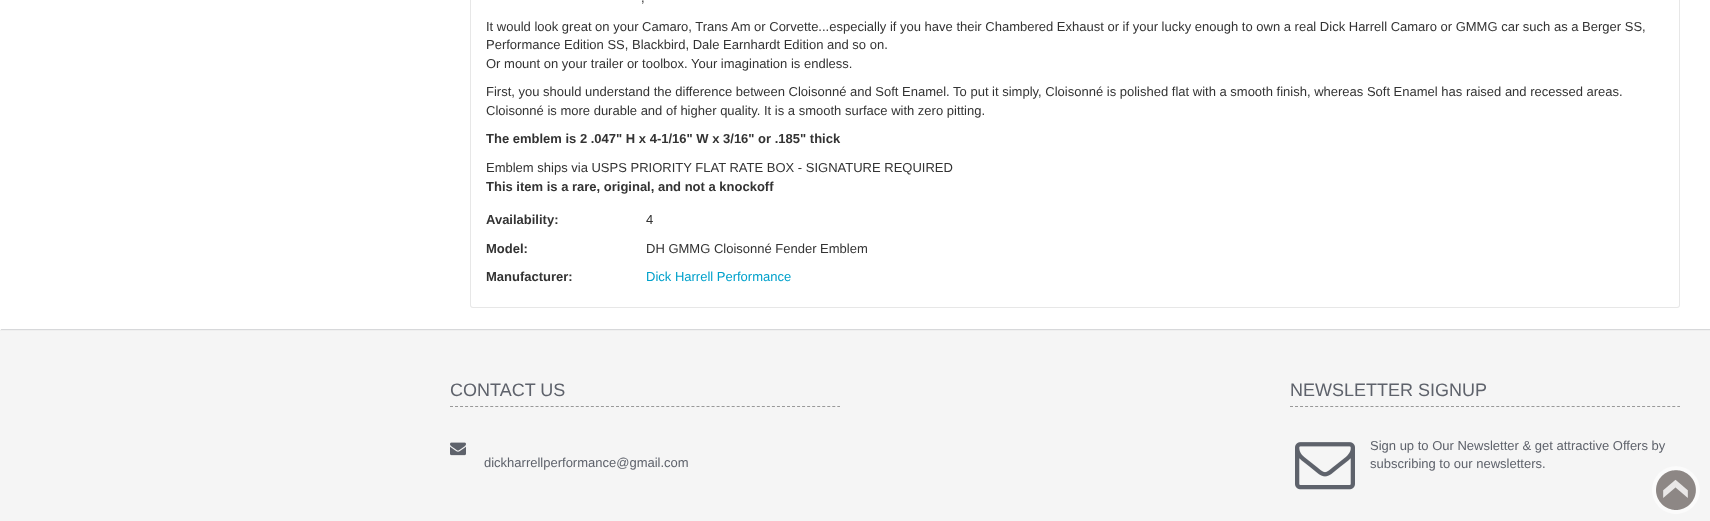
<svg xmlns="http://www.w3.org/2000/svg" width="1710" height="521">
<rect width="100%" height="100%" fill="#fff"/>
<path d="M473-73h1204c2 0 3 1 3 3v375c0 2-1 3-3 3h-1204c-2 0-3-1-3-3v-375c0-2 1-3 3-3zm0 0h1204c1 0 2 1 2 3v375c0 1-1 2-2 2h-1204c-1 0-2-1-2-2v-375c0-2 1-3 2-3z" fill="#e7e7e7" fill-rule="evenodd"/>
<text x="641" y="2" style="font-family:Liberation Sans;font-size:13px;fill:#333">,</text>
<text x="486" y="31" style="font-family:Liberation Sans;font-size:13px;fill:#333">It would look great on your Camaro, Trans Am or Corvette...especially if you have their Chambered Exhaust or if your lucky enough to own a real Dick Harrell Camaro or GMMG car such as a Berger SS,</text>
<text x="486" y="49" style="font-family:Liberation Sans;font-size:13px;fill:#333">Performance Edition SS, Blackbird, Dale Earnhardt Edition and so on.</text>
<text x="486" y="68" style="font-family:Liberation Sans;font-size:13px;fill:#333">Or mount on your trailer or toolbox. Your imagination is endless.</text>
<text x="486" y="96" style="font-family:Liberation Sans;font-size:13px;fill:#333">First, you should understand the difference between Cloisonné and Soft Enamel. To put it simply, Cloisonné is polished flat with a smooth finish, whereas Soft Enamel has raised and recessed areas.</text>
<text x="486" y="115" style="font-family:Liberation Sans;font-size:13px;fill:#333">Cloisonné is more durable and of higher quality. It is a smooth surface with zero pitting.</text>
<text x="486" y="143" style="font-family:Liberation Sans;font-size:13px;font-weight:bold;fill:#333">The emblem is 2 .047" H x 4-1/16" W x 3/16" or .185" thick</text>
<text x="486" y="172" style="font-family:Liberation Sans;font-size:13px;fill:#333">Emblem ships via USPS PRIORITY FLAT RATE BOX - SIGNATURE REQUIRED</text>
<text x="486" y="191" style="font-family:Liberation Sans;font-size:13px;font-weight:bold;fill:#333">This item is a rare, original, and not a knockoff</text>
<text x="486" y="224" style="font-family:Liberation Sans;font-size:13px;font-weight:bold;fill:#333">Availability:</text>
<text x="646" y="224" style="font-family:Liberation Sans;font-size:13px;fill:#333">4</text>
<text x="486" y="253" style="font-family:Liberation Sans;font-size:13px;font-weight:bold;fill:#333">Model:</text>
<text x="646" y="253" style="font-family:Liberation Sans;font-size:13px;fill:#333">DH GMMG Cloisonné Fender Emblem</text>
<text x="486" y="281" style="font-family:Liberation Sans;font-size:13px;font-weight:bold;fill:#333">Manufacturer:</text>
<text x="646" y="281" style="font-family:Liberation Sans;font-size:13px;fill:#00a1cb">Dick Harrell Performance</text>
<rect y="329" width="1710" height="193" rx="1" fill="#f5f5f5"/>
<path d="M1709 330h-1709v1h1710v-1z" fill="#efefef"/>
<rect x="1" y="329" width="1709" height="1" fill="#d7d8da"/>
<path d="M450 406.5h390" fill="none" stroke="#999" stroke-dasharray="3 2.03"/>
<text x="450" y="396" style="font-family:Liberation Sans;font-size:18px;fill:#5e626b">CONTACT US</text>
<image x="450" y="442" width="16" height="14" href="media/1.png"/>
<text x="484" y="467" style="font-family:Liberation Sans;font-size:13px;fill:#5e626b">dickharrellperformance@gmail.com</text>
<path d="M1290 406.5h390" fill="none" stroke="#999" stroke-dasharray="3 2.03"/>
<text x="1290" y="396" style="font-family:Liberation Sans;font-size:18px;fill:#5e626b">NEWSLETTER SIGNUP</text>
<image x="1295" y="442" width="60" height="48" href="media/2.png"/>
<text x="1370" y="450" style="font-family:Liberation Sans;font-size:13px;fill:#5e626b">Sign up to Our Newsletter &amp; get attractive Offers by</text>
<text x="1370" y="468" style="font-family:Liberation Sans;font-size:13px;fill:#5e626b">subscribing to our newsletters.</text>
<image x="1652" y="466" width="48" height="48" href="media/3.png"/>
</svg>
